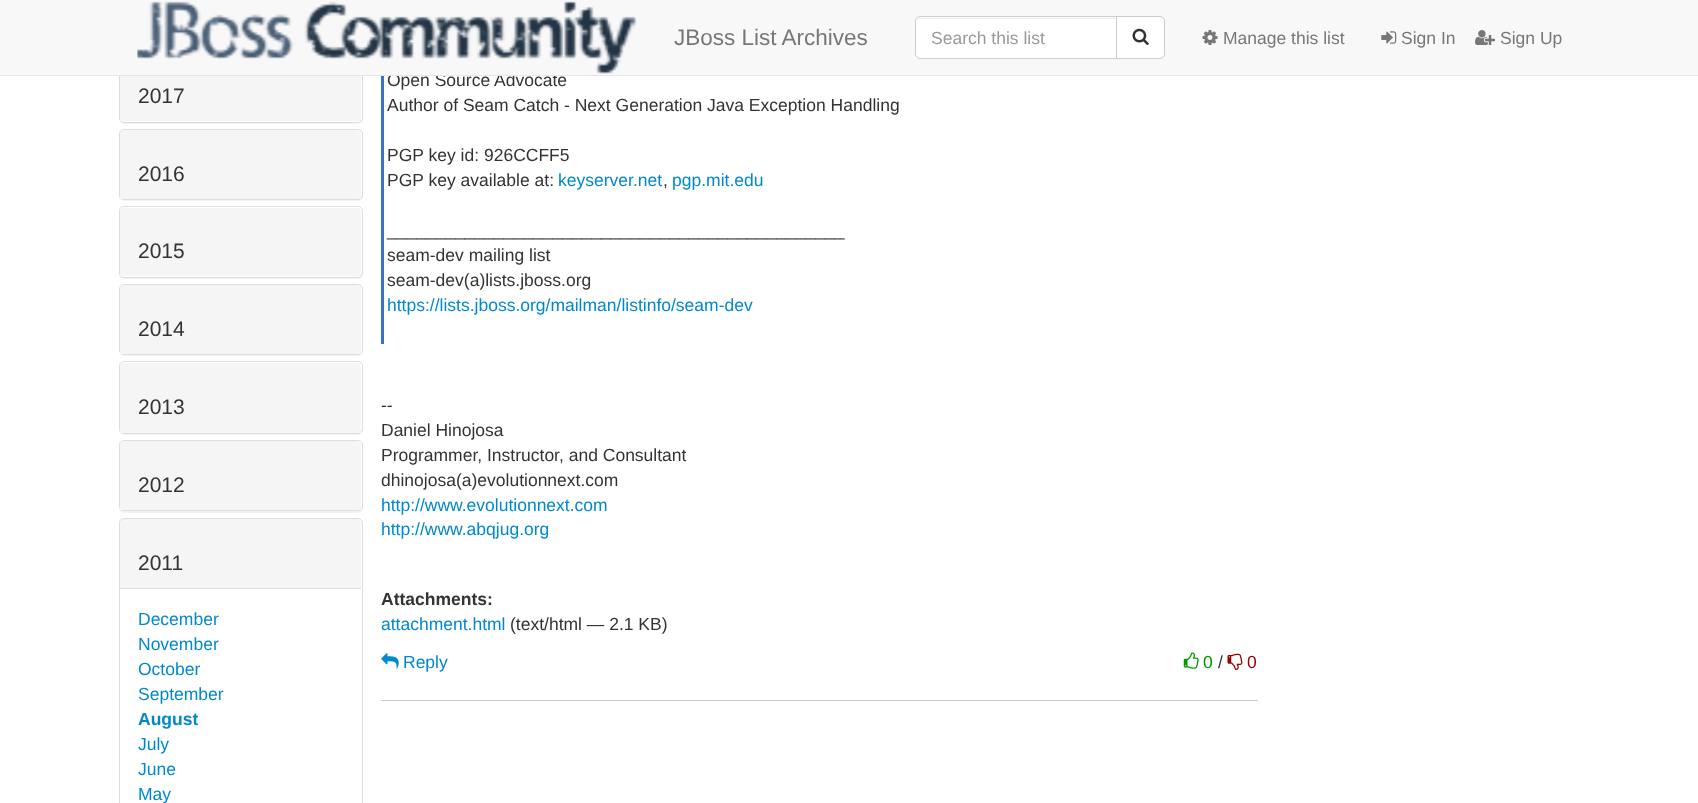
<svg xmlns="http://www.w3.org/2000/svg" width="1698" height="803">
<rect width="100%" height="100%" fill="#fff"/>
<rect x="119" y="51" width="244" height="73" rx="5" fill="#0000000d" filter="blur(0.5px)"/>
<rect x="119.5" y="50.5" width="243" height="72" rx="4.5" fill="#fff" stroke="#ddd"/>
<text x="387" y="86" style="font-family:Liberation Sans;font-size:17.5px;fill:#333">Open Source Advocate</text>
<rect width="1698" height="75" fill="#f8f8f8"/>
<rect y="75" width="1698" height="1" fill="#e7e7e7"/>
<image x="137" y="1" width="500" height="73" href="media/1.png"/>
<text x="674" y="45" style="font-family:Liberation Sans;font-size:22.5px;fill:#777">JBoss List Archives</text>
<path d="M920 16h198v43h-198c-3 0-5-2-5-5v-33c0-3 2-5 5-5z" fill="#fff"/>
<path d="M920 19h196v-1h-196c-2 0-4 2-4 4c0-2 2-3 4-3z" fill="#ececec"/>
<path d="M920 16.5h197.5v42h-197.5c-2.5 0-4.5-2-4.5-4.5v-33c0-2.5 2-4.5 4.5-4.5z" fill="none" stroke="#ccc"/>
<text x="931" y="44" style="font-family:Liberation Sans;font-size:17.5px;fill:#999">Search this list</text>
<path d="M1116.5 16.5h43.5c2.5 0 4.5 2 4.5 4.5v33c0 2.5-2 4.5-4.5 4.5h-43.5z" fill="#fff" stroke="#ccc"/>
<image x="1132" y="28" width="17" height="17" href="media/2.png"/>
<image x="1202" y="30" width="16" height="15" href="media/3.png"/>
<text x="1223" y="44" style="font-family:Liberation Sans;font-size:17.5px;fill:#777">Manage this list</text>
<image x="1381" y="31" width="16" height="13" href="media/4.png"/>
<text x="1401" y="44" style="font-family:Liberation Sans;font-size:17.5px;fill:#777">Sign In</text>
<image x="1475" y="30" width="20" height="15" href="media/5.png"/>
<text x="1500" y="44" style="font-family:Liberation Sans;font-size:17.5px;fill:#777">Sign Up</text>
<rect x="120" y="76" width="241" height="45" fill="#f5f5f5"/>
<text x="138" y="103" style="font-family:Liberation Sans;font-size:21px;fill:#333">2017</text>
<rect x="119" y="130" width="244" height="71" rx="5" fill="#0000000d" filter="blur(0.5px)"/>
<rect x="119.5" y="129.5" width="243" height="70" rx="4.5" fill="#fff" stroke="#ddd"/>
<path d="M124 130h233c2 0 4 2 4 4v65h-241v-65c0-2 2-4 4-4z" fill="#f5f5f5"/>
<text x="138" y="181" style="font-family:Liberation Sans;font-size:21px;fill:#333">2016</text>
<rect x="119" y="208" width="244" height="71" rx="5" fill="#0000000d" filter="blur(0.5px)"/>
<rect x="119.5" y="206.5" width="243" height="71" rx="4.5" fill="#fff" stroke="#ddd"/>
<path d="M124 208h233c2 0 4 2 4 4v64h-241v-64c0-2 2-4 4-4z" fill="#f5f5f5"/>
<text x="138" y="258" style="font-family:Liberation Sans;font-size:21px;fill:#333">2015</text>
<rect x="119" y="285" width="244" height="71" rx="5" fill="#0000000d" filter="blur(0.5px)"/>
<rect x="119.5" y="284.5" width="243" height="70" rx="4.5" fill="#fff" stroke="#ddd"/>
<path d="M124 285h233c2 0 4 2 4 4v65h-241v-65c0-2 2-4 4-4z" fill="#f5f5f5"/>
<text x="138" y="336" style="font-family:Liberation Sans;font-size:21px;fill:#333">2014</text>
<rect x="119" y="363" width="244" height="72" rx="5" fill="#0000000d" filter="blur(0.5px)"/>
<rect x="119.5" y="361.5" width="243" height="72" rx="4.5" fill="#fff" stroke="#ddd"/>
<path d="M124 363h233c2 0 4 2 4 4v66h-241v-66c0-2 2-4 4-4z" fill="#f5f5f5"/>
<text x="138" y="414" style="font-family:Liberation Sans;font-size:21px;fill:#333">2013</text>
<rect x="119" y="441" width="244" height="72" rx="5" fill="#0000000d" filter="blur(0.5px)"/>
<rect x="119.5" y="440.5" width="243" height="70" rx="4.5" fill="#fff" stroke="#ddd"/>
<path d="M124 441h233c2 0 4 2 4 4v65h-241v-65c0-2 2-4 4-4z" fill="#f5f5f5"/>
<text x="138" y="492" style="font-family:Liberation Sans;font-size:21px;fill:#333">2012</text>
<rect x="119.5" y="518.5" width="243" height="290" rx="4.5" fill="none" stroke="#ddd"/>
<path d="M124 519h233c2 0 4 2 4 4v65h-241v-65c0-2 2-4 4-4z" fill="#f5f5f5"/>
<text x="138" y="570" style="font-family:Liberation Sans;font-size:21px;fill:#333">2011</text>
<rect x="120" y="588" width="241" height="1" fill="#ddd"/>
<text x="138" y="625" style="font-family:Liberation Sans;font-size:17.5px;fill:#08c">December</text>
<text x="138" y="650" style="font-family:Liberation Sans;font-size:17.5px;fill:#08c">November</text>
<text x="138" y="675" style="font-family:Liberation Sans;font-size:17.5px;fill:#08c">October</text>
<text x="138" y="700" style="font-family:Liberation Sans;font-size:17.5px;fill:#08c">September</text>
<text x="138" y="725" style="font-family:Liberation Sans;font-size:17.5px;font-weight:bold;fill:#08c">August</text>
<text x="138" y="750" style="font-family:Liberation Sans;font-size:17.5px;fill:#08c">July</text>
<text x="138" y="775" style="font-family:Liberation Sans;font-size:17.5px;fill:#08c">June</text>
<text x="138" y="800" style="font-family:Liberation Sans;font-size:17.5px;fill:#08c">May</text>
<rect x="381" y="76" width="3" height="268" fill="#3771c8"/>
<text x="387" y="111" style="font-family:Liberation Sans;font-size:17.5px;fill:#333">Author of Seam Catch - Next Generation Java Exception Handling</text>
<text x="387" y="161" style="font-family:Liberation Sans;font-size:17.5px;fill:#333">PGP key id: 926CCFF5</text>
<text x="387" y="186" style="font-family:Liberation Sans;font-size:17.5px;fill:#333">PGP key available at:</text>
<text x="558" y="186" style="font-family:Liberation Sans;font-size:17.5px;fill:#08c">keyserver.net</text>
<text x="663" y="186" style="font-family:Liberation Sans;font-size:17.5px;fill:#333">,</text>
<text x="672" y="186" style="font-family:Liberation Sans;font-size:17.5px;fill:#08c">pgp.mit.edu</text>
<text x="387" y="236" style="font-family:Liberation Sans;font-size:17.5px;fill:#333">_______________________________________________</text>
<text x="387" y="261" style="font-family:Liberation Sans;font-size:17.5px;fill:#333">seam-dev mailing list</text>
<text x="387" y="286" style="font-family:Liberation Sans;font-size:17.5px;fill:#333">seam-dev(a)lists.jboss.org</text>
<text x="387" y="311" style="font-family:Liberation Sans;font-size:17.5px;fill:#08c">https://lists.jboss.org/mailman/listinfo/seam-dev</text>
<text x="381" y="411" style="font-family:Liberation Sans;font-size:17.5px;fill:#333">--</text>
<text x="381" y="436" style="font-family:Liberation Sans;font-size:17.5px;fill:#333">Daniel Hinojosa</text>
<text x="381" y="461" style="font-family:Liberation Sans;font-size:17.5px;fill:#333">Programmer, Instructor, and Consultant</text>
<text x="381" y="486" style="font-family:Liberation Sans;font-size:17.5px;fill:#333">dhinojosa(a)evolutionnext.com</text>
<text x="381" y="511" style="font-family:Liberation Sans;font-size:17.5px;fill:#08c">http://www.evolutionnext.com</text>
<text x="381" y="535" style="font-family:Liberation Sans;font-size:17.5px;fill:#08c">http://www.abqjug.org</text>
<text x="381" y="605" style="font-family:Liberation Sans;font-size:17.5px;font-weight:bold;fill:#333">Attachments:</text>
<text x="381" y="630" style="font-family:Liberation Sans;font-size:17.5px;fill:#08c">attachment.html</text>
<text x="510" y="630" style="font-family:Liberation Sans;font-size:17.5px;fill:#333">(text/html — 2.1 KB)</text>
<rect x="381" y="700" width="877" height="1" fill="#ccc"/>
<image x="381" y="653" width="18" height="16" href="media/6.png"/>
<text x="403" y="668" style="font-family:Liberation Sans;font-size:17.5px;fill:#08c">Reply</text>
<image x="1183" y="652" width="16" height="17" href="media/7.png"/>
<text x="1203" y="668" style="font-family:Liberation Sans;font-size:17.5px;fill:#090">0</text>
<text x="1218" y="668" style="font-family:Liberation Sans;font-size:17.5px;fill:#333">/</text>
<image x="1227" y="653" width="16" height="17" href="media/8.png"/>
<text x="1247" y="668" style="font-family:Liberation Sans;font-size:17.5px;fill:#900">0</text>
</svg>
